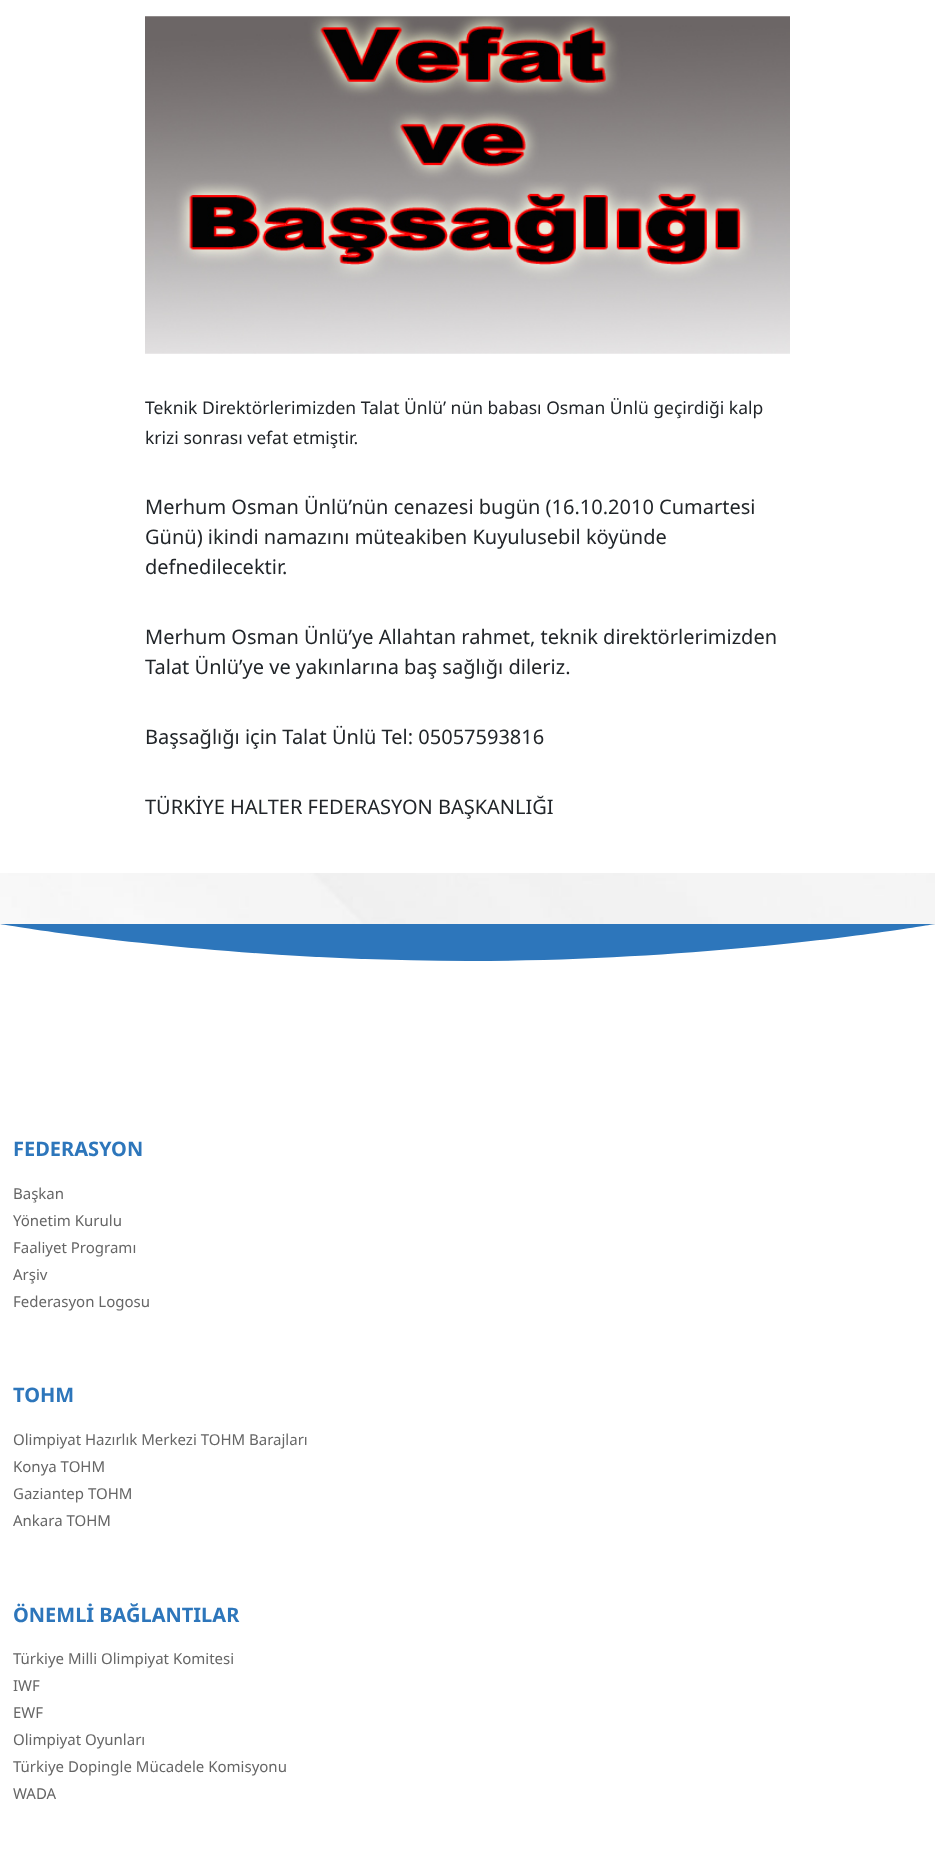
<svg xmlns="http://www.w3.org/2000/svg" width="935" height="1874">
<rect width="100%" height="100%" fill="#fff"/>
<image x="0" y="873" width="935" height="52" href="media/1.png"/>
<image x="145" y="16" width="645" height="338" href="media/2.png"/>
<text x="145" y="414" style="font-family:Noto Sans;font-size:17.5px;fill:#212529">Teknik Direktörlerimizden Talat Ünlü’ nün babası Osman Ünlü geçirdiği kalp</text>
<text x="145" y="444" style="font-family:Noto Sans;font-size:17.5px;fill:#212529">krizi sonrası vefat etmiştir.</text>
<text x="145" y="514" style="font-family:Noto Sans;font-size:20px;fill:#212529">Merhum Osman Ünlü’nün cenazesi bugün (16.10.2010 Cumartesi</text>
<text x="145" y="544" style="font-family:Noto Sans;font-size:20px;fill:#212529">Günü) ikindi namazını müteakiben Kuyulusebil köyünde</text>
<text x="145" y="574" style="font-family:Noto Sans;font-size:20px;fill:#212529">defnedilecektir.</text>
<text x="145" y="644" style="font-family:Noto Sans;font-size:20px;fill:#212529">Merhum Osman Ünlü’ye Allahtan rahmet, teknik direktörlerimizden</text>
<text x="145" y="674" style="font-family:Noto Sans;font-size:20px;fill:#212529">Talat Ünlü’ye ve yakınlarına baş sağlığı dileriz.</text>
<text x="145" y="744" style="font-family:Noto Sans;font-size:20px;fill:#212529">Başsağlığı için Talat Ünlü Tel: 05057593816</text>
<text x="145" y="814" style="font-family:Noto Sans;font-size:20px;fill:#212529">TÜRKİYE HALTER FEDERASYON BAŞKANLIĞI</text>
<path d="M468 961c-259 0-468-37-468-37h935c0 0-209 37-467 37z" fill="#2d76bb"/>
<text x="13" y="1156" style="font-family:Noto Sans;font-size:20px;font-weight:bold;fill:#2d76bb">FEDERASYON</text>
<text x="13" y="1199" style="font-family:Noto Sans;font-size:15px;fill:#666">Başkan</text>
<text x="13" y="1226" style="font-family:Noto Sans;font-size:15px;fill:#666">Yönetim Kurulu</text>
<text x="13" y="1253" style="font-family:Noto Sans;font-size:15px;fill:#666">Faaliyet Programı</text>
<text x="13" y="1280" style="font-family:Noto Sans;font-size:15px;fill:#666">Arşiv</text>
<text x="13" y="1307" style="font-family:Noto Sans;font-size:15px;fill:#666">Federasyon Logosu</text>
<text x="13" y="1402" style="font-family:Noto Sans;font-size:20px;font-weight:bold;fill:#2d76bb">TOHM</text>
<text x="13" y="1445" style="font-family:Noto Sans;font-size:15px;fill:#666">Olimpiyat Hazırlık Merkezi TOHM Barajları</text>
<text x="13" y="1472" style="font-family:Noto Sans;font-size:15px;fill:#666">Konya TOHM</text>
<text x="13" y="1499" style="font-family:Noto Sans;font-size:15px;fill:#666">Gaziantep TOHM</text>
<text x="13" y="1526" style="font-family:Noto Sans;font-size:15px;fill:#666">Ankara TOHM</text>
<text x="13" y="1622" style="font-family:Noto Sans;font-size:20px;font-weight:bold;fill:#2d76bb">ÖNEMLİ BAĞLANTILAR</text>
<text x="13" y="1664" style="font-family:Noto Sans;font-size:15px;fill:#666">Türkiye Milli Olimpiyat Komitesi</text>
<text x="13" y="1691" style="font-family:Noto Sans;font-size:15px;fill:#666">IWF</text>
<text x="13" y="1718" style="font-family:Noto Sans;font-size:15px;fill:#666">EWF</text>
<text x="13" y="1745" style="font-family:Noto Sans;font-size:15px;fill:#666">Olimpiyat Oyunları</text>
<text x="13" y="1772" style="font-family:Noto Sans;font-size:15px;fill:#666">Türkiye Dopingle Mücadele Komisyonu</text>
<text x="13" y="1799" style="font-family:Noto Sans;font-size:15px;fill:#666">WADA</text>
</svg>
